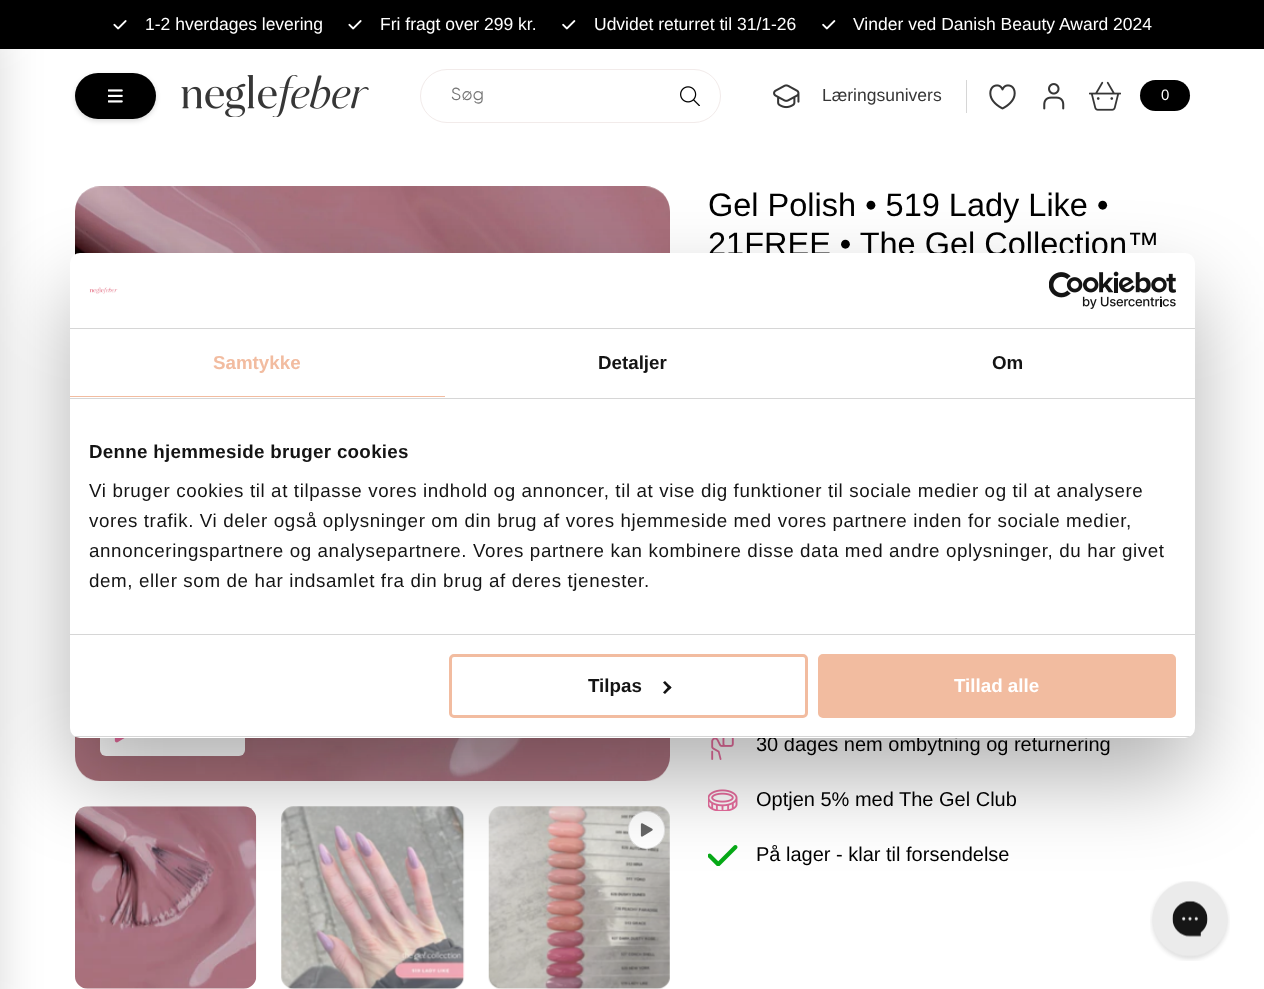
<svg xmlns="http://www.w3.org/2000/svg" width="1264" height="989">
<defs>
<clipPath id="clip1"><rect x="70" y="253" width="1125" height="485" rx="10"/></clipPath>
</defs>
<rect width="100%" height="100%" fill="#fff"/>
<rect width="1264" height="49" fill="#000"/>
<image x="113" y="20" width="14" height="10" href="media/1.png"/>
<text x="145" y="30" style="font-family:Liberation Sans;font-size:17.5px;fill:#fff">1-2 hverdages levering</text>
<image x="348" y="20" width="14" height="10" href="media/1.png"/>
<text x="380" y="30" style="font-family:Liberation Sans;font-size:17.5px;fill:#fff">Fri fragt over 299 kr.</text>
<image x="562" y="20" width="14" height="10" href="media/2.png"/>
<text x="594" y="30" style="font-family:Liberation Sans;font-size:17.5px;fill:#fff">Udvidet returret til 31/1-26</text>
<image x="822" y="20" width="14" height="10" href="media/2.png"/>
<text x="853" y="30" style="font-family:Liberation Sans;font-size:17.5px;fill:#fff">Vinder ved Danish Beauty Award 2024</text>
<rect x="-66" y="30" width="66" height="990" fill="#00000026" filter="blur(22px)"/>
<rect x="75" y="75" width="81" height="46" rx="23" fill="#00000026" filter="blur(2.5px)"/>
<rect x="75" y="73" width="81" height="46" rx="23" fill="#000"/>
<image x="108" y="89" width="15" height="14" href="media/3.png"/>
<image x="181" y="75" width="188" height="42" href="media/4.png"/>
<rect x="420.5" y="69.5" width="300" height="53" rx="26.5" fill="none" stroke="#f2ebea"/>
<text x="451" y="100" style="font-family:Gilroy;font-size:17.5px;letter-spacing:0.5px;fill:#757575">Søg</text>
<image x="680" y="86" width="20" height="20" href="media/5.png"/>
<rect x="966" y="80" width="1" height="33" fill="#d6d6d6"/>
<image x="773" y="84" width="27" height="25" href="media/6.png"/>
<text x="822" y="101" style="font-family:Liberation Sans;font-size:17.5px;fill:#363636">Læringsunivers</text>
<image x="989" y="84" width="27" height="26" href="media/7.png"/>
<image x="1043" y="83" width="22" height="27" href="media/8.png"/>
<image x="1089" y="81" width="32" height="30" href="media/9.png"/>
<rect x="1140" y="80" width="50" height="31" rx="15.5" fill="#000"/>
<text x="1161" y="100" style="font-family:Liberation Sans;font-size:15px;fill:#fff">0</text>
<image x="75" y="186" width="595" height="595" href="media/10.png"/>
<rect x="100" y="710" width="145" height="46" rx="6" fill="#fff"/>
<image x="114" y="738" width="11" height="5" href="media/11.png"/>
<image x="75" y="806" width="182" height="183" href="media/12.png"/>
<image x="281" y="806" width="184" height="183" href="media/13.png"/>
<image x="488" y="806" width="182" height="183" href="media/14.png"/>
<rect x="628" y="811" width="37" height="38" rx="18.5" fill="#fff"/>
<rect x="628.5" y="811.5" width="36" height="37" rx="18" fill="none" stroke="#0000001a"/>
<image x="640" y="823" width="13" height="14" href="media/15.png"/>
<text x="708" y="216" style="font-family:Liberation Sans;font-size:32.5px;fill:#000">Gel Polish • 519 Lady Like •</text>
<text x="708" y="255" style="font-family:Liberation Sans;font-size:32.5px;fill:#000">21FREE • The Gel Collection™</text>
<image x="711" y="738" width="23" height="22" href="media/16.png"/>
<text x="756" y="751" style="font-family:Liberation Sans;font-size:20px;fill:#000">30 dages nem ombytning og returnering</text>
<image x="708" y="789" width="30" height="22" href="media/17.png"/>
<text x="756" y="806" style="font-family:Liberation Sans;font-size:20px;fill:#000">Optjen 5% med</text>
<text x="899" y="806" style="font-family:Liberation Sans;font-size:20px;fill:#000">The Gel Club</text>
<image x="708" y="845" width="30" height="21" href="media/18.png"/>
<text x="756" y="861" style="font-family:Liberation Sans;font-size:20px;fill:#000">På lager - klar til forsendelse</text>
<rect x="70" y="293" width="1125" height="485" rx="10" fill="#0000004d" filter="blur(42.5px)"/>
<rect x="70" y="253" width="1125" height="485" rx="10" fill="#fff"/>
<rect x="70" y="328" width="1125" height="1" fill="#d6d6d6"/>
<image x="89" y="287" width="29" height="7" href="media/19.png"/>
<image x="1049" y="271" width="127" height="38" href="media/20.png"/>
<rect x="70" y="398" width="1125" height="1" fill="#d6d6d6"/>
<rect x="70" y="396" width="375" height="1" fill="#f2bca0"/>
<text x="213" y="369" style="font-family:Liberation Sans;font-size:18.75px;font-weight:bold;fill:#f2bca0">Samtykke</text>
<text x="598" y="369" style="font-family:Liberation Sans;font-size:18.75px;font-weight:bold;fill:#141414">Detaljer</text>
<text x="992" y="369" style="font-family:Liberation Sans;font-size:18.75px;font-weight:bold;fill:#141414">Om</text>
<rect x="70" y="634" width="1125" height="1" fill="#d6d6d6"/>
<text x="89" y="458" style="font-family:Liberation Sans;font-size:18.75px;font-weight:bold;letter-spacing:0.3px;fill:#141414">Denne hjemmeside bruger cookies</text>
<text x="89" y="497" style="font-family:Liberation Sans;font-size:18.75px;letter-spacing:0.62px;fill:#141414">Vi bruger cookies til at tilpasse vores indhold og annoncer, til at vise dig funktioner til sociale medier og til at analysere</text>
<text x="89" y="527" style="font-family:Liberation Sans;font-size:18.75px;letter-spacing:0.62px;fill:#141414">vores trafik. Vi deler også oplysninger om din brug af vores hjemmeside med vores partnere inden for sociale medier,</text>
<text x="89" y="557" style="font-family:Liberation Sans;font-size:18.75px;letter-spacing:0.62px;fill:#141414">annonceringspartnere og analysepartnere. Vores partnere kan kombinere disse data med andre oplysninger, du har givet</text>
<text x="89" y="587" style="font-family:Liberation Sans;font-size:18.75px;letter-spacing:0.62px;fill:#141414">dem, eller som de har indsamlet fra din brug af deres tjenester.</text>
<g clip-path="url(#clip1)">
<rect x="70" y="736" width="1125" height="1" fill="#d6d6d6"/>
</g>
<rect x="450.5" y="655.5" width="356" height="61" rx="3.5" fill="none" stroke="#f2bca0" stroke-width="3"/>
<text x="588" y="692" style="font-family:Liberation Sans;font-size:18.75px;font-weight:bold;fill:#141414">Tilpas</text>
<path d="M665 681l6.5 6.5l-2 2l-6.5-7z" fill="#141414"/>
<path d="M669.5 685.5l2 2l-6.5 6.5l-2-1.5z" fill="#141414"/>
<rect x="819.5" y="655.5" width="355" height="61" rx="3.5" fill="#f2bca0" stroke="#f2bca0" stroke-width="3"/>
<text x="954" y="692" style="font-family:Liberation Sans;font-size:18.75px;font-weight:bold;fill:#fff">Tillad alle</text>
<image x="1150" y="881" width="80" height="80" href="media/21.png"/>
</svg>
